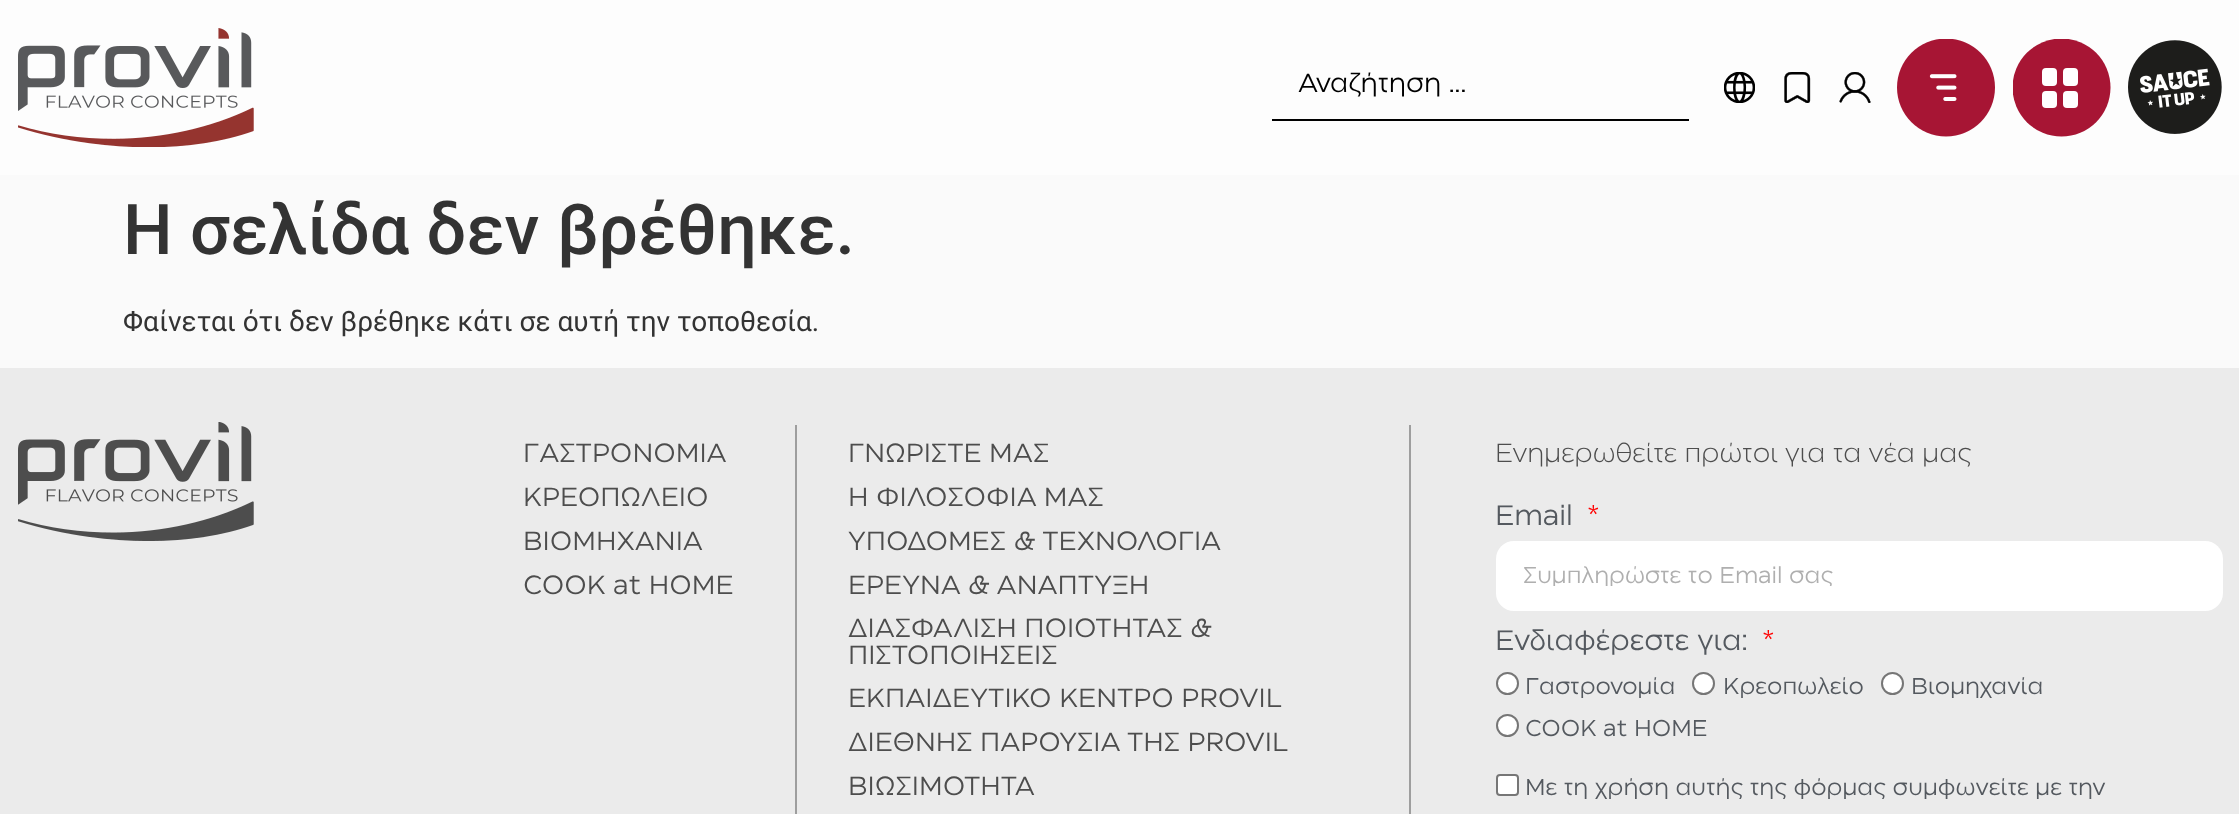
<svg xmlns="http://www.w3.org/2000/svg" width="2239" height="814">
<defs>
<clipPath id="clip1"><rect x="2013" y="39" width="98" height="98"/></clipPath>
<clipPath id="clip2"><rect x="1524" y="565" width="671" height="21"/></clipPath>
</defs>
<rect width="100%" height="100%" fill="#fafafa"/>
<rect width="2239" height="175" fill="#fdfdfd"/>
<image x="18" y="28" width="236" height="119" href="media/1.png"/>
<rect x="1272" y="119" width="417" height="2" fill="#000"/>
<text x="1298" y="92" style="font-family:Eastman;font-size:26.25px;fill:#000">Αναζήτηση ...</text>
<image x="1724" y="72" width="31" height="31" href="media/2.png"/>
<image x="1784" y="72" width="27" height="31" href="media/3.png"/>
<image x="1839" y="72" width="32" height="31" href="media/4.png"/>
<image x="1897" y="39" width="98" height="98" href="media/5.png"/>
<g clip-path="url(#clip1)">
<circle cx="2061.5" cy="87.5" r="49" fill="#a71534"/>
</g>
<rect x="2042" y="68" width="15" height="18" rx="4" fill="#fff"/>
<rect x="2042" y="91" width="15" height="17" rx="4" fill="#fff"/>
<rect x="2063" y="68" width="15" height="18" rx="4" fill="#fff"/>
<rect x="2063" y="91" width="15" height="17" rx="4" fill="#fff"/>
<image x="2128" y="40" width="94" height="94" href="media/6.png"/>
<text x="123" y="254" style="font-family:Roboto;font-size:70px;font-weight:500;fill:#333">Η σελίδα δεν βρέθηκε.</text>
<text x="123" y="331" style="font-family:Roboto;font-size:28px;fill:#333">Φαίνεται ότι δεν βρέθηκε κάτι σε αυτή την τοποθεσία.</text>
<rect y="368" width="2239" height="446" fill="#ebebeb"/>
<image x="18" y="422" width="236" height="119" href="media/7.png"/>
<rect x="795" y="425" width="2" height="389" fill="#9e9e9e"/>
<text x="523" y="462" style="font-family:Eastman;font-size:26.25px;fill:#4d4d4d">ΓΑΣΤΡΟΝΟΜΙΑ</text>
<text x="523" y="506" style="font-family:Eastman;font-size:26.25px;fill:#4d4d4d">ΚΡΕΟΠΩΛΕΙΟ</text>
<text x="523" y="550" style="font-family:Eastman;font-size:26.25px;fill:#4d4d4d">BIOMHXANIA</text>
<text x="523" y="594" style="font-family:Eastman;font-size:26.25px;fill:#4d4d4d">COOK at HOME</text>
<rect x="1409" y="425" width="2" height="389" fill="#9e9e9e"/>
<text x="848" y="462" style="font-family:Eastman;font-size:26.25px;fill:#4d4d4d">ΓΝΩΡΙΣΤΕ ΜΑΣ</text>
<text x="848" y="506" style="font-family:Eastman;font-size:26.25px;fill:#4d4d4d">Η ΦΙΛΟΣΟΦΙΑ ΜΑΣ</text>
<text x="848" y="550" style="font-family:Eastman;font-size:26.25px;fill:#4d4d4d">ΥΠΟΔΟΜΕΣ &amp; ΤΕΧΝΟΛΟΓΙΑ</text>
<text x="848" y="594" style="font-family:Eastman;font-size:26.25px;fill:#4d4d4d">ΕΡΕΥΝΑ &amp; ΑΝΑΠΤΥΞΗ</text>
<text x="848" y="637" style="font-family:Eastman;font-size:26.25px;fill:#4d4d4d">ΔΙΑΣΦΑΛΙΣΗ ΠΟΙΟΤΗΤΑΣ &amp;</text>
<text x="848" y="664" style="font-family:Eastman;font-size:26.25px;fill:#4d4d4d">ΠΙΣΤΟΠΟΙΗΣΕΙΣ</text>
<text x="848" y="707" style="font-family:Eastman;font-size:26.25px;fill:#4d4d4d">ΕΚΠΑΙΔΕΥΤΙΚΟ ΚΕΝΤΡΟ PROVIL</text>
<text x="848" y="751" style="font-family:Eastman;font-size:26.25px;fill:#4d4d4d">ΔΙΕΘΝΗΣ ΠΑΡΟΥΣΙΑ ΤΗΣ PROVIL</text>
<text x="848" y="795" style="font-family:Eastman;font-size:26.25px;fill:#4d4d4d">ΒΙΩΣΙΜΟΤΗΤΑ</text>
<text x="1495" y="462" style="font-family:Eastman;font-size:26.25px;font-weight:300;fill:#4d4d4d">Ενημερωθείτε πρώτοι για τα νέα μας</text>
<text x="1495" y="525" style="font-family:Eastman;font-size:28px;fill:#54595f">Email</text>
<text x="1587" y="525" style="font-family:Eastman;font-size:28px;fill:#f00">*</text>
<rect x="1496" y="541" width="727" height="70" rx="18" fill="#fff"/>
<g clip-path="url(#clip2)">
<text x="1523" y="583" style="font-family:Eastman;font-size:22.75px;fill:#afafaf">Συμπληρώστε το Email σας</text>
</g>
<text x="1495" y="650" style="font-family:Eastman;font-size:28px;fill:#54595f">Ενδιαφέρεστε για:</text>
<text x="1762" y="650" style="font-family:Eastman;font-size:28px;fill:#f00">*</text>
<circle cx="1507.5" cy="683.5" r="10.5" fill="#fff" stroke="#767676" stroke-width="2"/>
<text x="1525" y="694" style="font-family:Eastman;font-size:22.75px;fill:#54595f">Γαστρονομία</text>
<circle cx="1703.5" cy="683.5" r="10.5" fill="#fff" stroke="#767676" stroke-width="2"/>
<text x="1723" y="694" style="font-family:Eastman;font-size:22.75px;fill:#54595f">Κρεοπωλείο</text>
<circle cx="1892.5" cy="683.5" r="10.5" fill="#fff" stroke="#767676" stroke-width="2"/>
<text x="1911" y="694" style="font-family:Eastman;font-size:22.75px;fill:#54595f">Βιομηχανία</text>
<circle cx="1507.5" cy="725.5" r="10.5" fill="#fff" stroke="#767676" stroke-width="2"/>
<text x="1525" y="736" style="font-family:Eastman;font-size:22.75px;fill:#54595f">COOK at HOME</text>
<rect x="1497" y="775" width="21" height="20" rx="3" fill="#fff" stroke="#767676" stroke-width="2"/>
<text x="1525" y="795" style="font-family:Eastman;font-size:22.75px;fill:#54595f">Με τη χρήση αυτής της φόρμας συμφωνείτε με την</text>
</svg>
